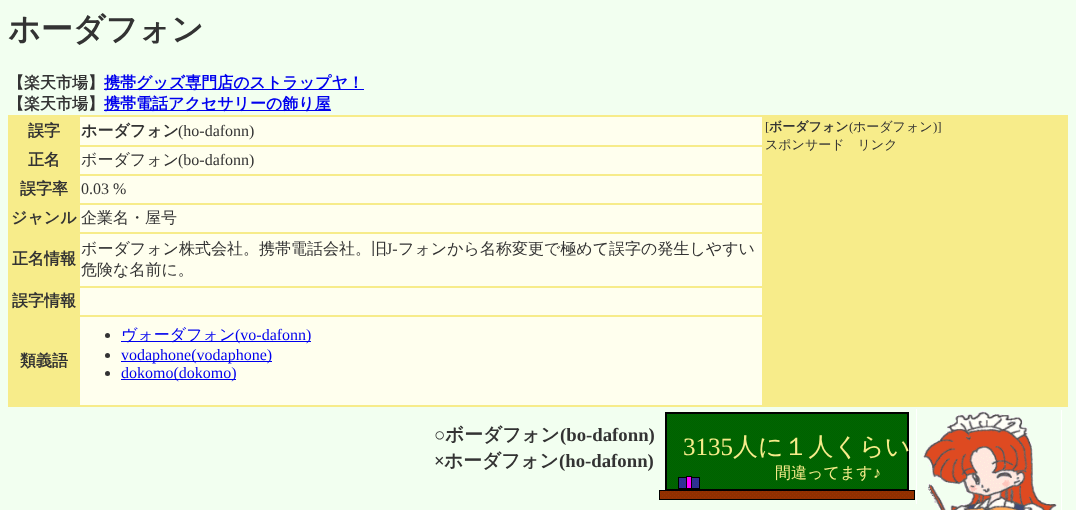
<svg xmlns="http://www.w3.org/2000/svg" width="1076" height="510">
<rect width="100%" height="100%" fill="#f2fff0"/>
<text x="8" y="40" style="font-family:WenQuanYi Zen Hei;font-size:32px;font-weight:bold;fill:#333">ホーダフォン</text>
<text x="8" y="88" style="font-family:WenQuanYi Zen Hei;font-size:16px;font-weight:bold;fill:#333">【楽天市場】</text>
<rect x="104" y="89" width="260" height="1" fill="#00e"/>
<text x="104" y="88" style="font-family:WenQuanYi Zen Hei;font-size:16px;font-weight:bold;fill:#00e">携帯グッズ専門店のストラップヤ！</text>
<text x="8" y="109" style="font-family:WenQuanYi Zen Hei;font-size:16px;font-weight:bold;fill:#333">【楽天市場】</text>
<rect x="104" y="110" width="227" height="1" fill="#00e"/>
<text x="104" y="109" style="font-family:WenQuanYi Zen Hei;font-size:16px;font-weight:bold;fill:#00e">携帯電話アクセサリーの飾り屋</text>
<rect x="8" y="115" width="1060" height="292" fill="#f7ec8a"/>
<text x="28" y="136" style="font-family:WenQuanYi Zen Hei;font-size:16px;font-weight:bold;fill:#333">誤字</text>
<rect x="80" y="117" width="682" height="28" fill="#ffe"/>
<text x="81" y="136" style="font-family:WenQuanYi Zen Hei;font-size:16px;font-weight:bold;fill:#333">ホーダフォン</text>
<text x="178" y="136" style="font-family:Liberation Serif;font-size:16px;fill:#333">(ho-dafonn)</text>
<text x="765" y="131" style="font-family:Liberation Serif;font-size:13px;fill:#333">[</text>
<text x="769" y="131" style="font-family:WenQuanYi Zen Hei;font-size:13px;font-weight:bold;fill:#333">ボーダフォン</text>
<text x="849" y="131" style="font-family:Liberation Serif;font-size:13px;fill:#333">(</text>
<text x="853" y="131" style="font-family:WenQuanYi Zen Hei;font-size:13px;font-weight:500;fill:#333">ホーダフォン</text>
<text x="933" y="131" style="font-family:Liberation Serif;font-size:13px;fill:#333">)]</text>
<text x="765" y="149" style="font-family:WenQuanYi Zen Hei;font-size:13px;font-weight:500;fill:#333">スポンサード　リンク</text>
<text x="28" y="165" style="font-family:WenQuanYi Zen Hei;font-size:16px;font-weight:bold;fill:#333">正名</text>
<rect x="80" y="147" width="682" height="27" fill="#ffe"/>
<text x="81" y="165" style="font-family:WenQuanYi Zen Hei;font-size:16px;font-weight:500;fill:#333">ボーダフォン</text>
<text x="178" y="165" style="font-family:Liberation Serif;font-size:16px;fill:#333">(bo-dafonn)</text>
<text x="20" y="194" style="font-family:WenQuanYi Zen Hei;font-size:16px;font-weight:bold;fill:#333">誤字率</text>
<rect x="80" y="176" width="682" height="27" fill="#ffe"/>
<text x="81" y="194" style="font-family:Liberation Serif;font-size:16px;fill:#333">0.03 %</text>
<text x="11" y="223" style="font-family:WenQuanYi Zen Hei;font-size:16px;font-weight:bold;fill:#333">ジャンル</text>
<rect x="80" y="205" width="682" height="27" fill="#ffe"/>
<text x="81" y="223" style="font-family:WenQuanYi Zen Hei;font-size:16px;font-weight:500;fill:#333">企業名・屋号</text>
<text x="12" y="264" style="font-family:WenQuanYi Zen Hei;font-size:16px;font-weight:bold;fill:#333">正名情報</text>
<rect x="80" y="234" width="682" height="52" fill="#ffe"/>
<text x="81" y="254" style="font-family:WenQuanYi Zen Hei;font-size:16px;font-weight:500;fill:#333">ボーダフォン株式会社。携帯電話会社。旧</text>
<text x="386" y="254" style="font-family:Liberation Serif;font-size:16px;fill:#333">J-</text>
<text x="398" y="254" style="font-family:WenQuanYi Zen Hei;font-size:16px;font-weight:500;fill:#333">フォンから名称変更で極めて誤字の発生しやすい</text>
<text x="81" y="275" style="font-family:WenQuanYi Zen Hei;font-size:16px;font-weight:500;fill:#333">危険な名前に。</text>
<text x="12" y="306" style="font-family:WenQuanYi Zen Hei;font-size:16px;font-weight:bold;fill:#333">誤字情報</text>
<rect x="80" y="288" width="682" height="27" fill="#ffe"/>
<text x="20" y="366" style="font-family:WenQuanYi Zen Hei;font-size:16px;font-weight:bold;fill:#333">類義語</text>
<rect x="80" y="317" width="682" height="88" fill="#ffe"/>
<circle cx="107.5" cy="335.5" r="2.5" fill="#333"/>
<rect x="121" y="341" width="190" height="1" fill="#00e"/>
<text x="121" y="340" style="font-family:WenQuanYi Zen Hei;font-size:16px;font-weight:500;fill:#00e">ヴォーダフォン</text>
<text x="235" y="340" style="font-family:Liberation Serif;font-size:16px;fill:#00e">(vo-dafonn)</text>
<circle cx="107.5" cy="355.5" r="2.5" fill="#333"/>
<rect x="121" y="361" width="151" height="1" fill="#00e"/>
<text x="121" y="360" style="font-family:Liberation Serif;font-size:16px;fill:#00e">vodaphone(vodaphone)</text>
<circle cx="107.5" cy="373.5" r="2.5" fill="#333"/>
<rect x="121" y="379" width="115" height="1" fill="#00e"/>
<text x="121" y="378" style="font-family:Liberation Serif;font-size:16px;fill:#00e">dokomo(dokomo)</text>
<text x="434" y="441" style="font-family:Liberation Serif;font-size:18.75px;font-weight:bold;fill:#333">○</text>
<text x="445" y="441" style="font-family:WenQuanYi Zen Hei;font-size:18.75px;font-weight:bold;fill:#333">ボーダフォン</text>
<text x="560" y="441" style="font-family:Liberation Serif;font-size:18.75px;font-weight:bold;fill:#333">(bo-dafonn)</text>
<text x="434" y="467" style="font-family:Liberation Serif;font-size:18.75px;font-weight:bold;fill:#333">×</text>
<text x="444" y="467" style="font-family:WenQuanYi Zen Hei;font-size:18.75px;font-weight:bold;fill:#333">ホーダフォン</text>
<text x="559" y="467" style="font-family:Liberation Serif;font-size:18.75px;font-weight:bold;fill:#333">(ho-dafonn)</text>
<image x="659" y="409" width="258" height="95" href="media/1.png"/>
<text x="683" y="455" style="font-family:Liberation Serif;font-size:25px;fill:#f7ec8a">3135</text>
<text x="733" y="455" style="font-family:WenQuanYi Zen Hei;font-size:25px;font-weight:500;fill:#f7ec8a">人に１人くらい</text>
<text x="775" y="478" style="font-family:WenQuanYi Zen Hei;font-size:16px;font-weight:500;fill:#f7ec8a">間違ってます</text>
<text x="873" y="478" style="font-family:Liberation Serif;font-size:16px;fill:#f7ec8a">♪</text>
<image x="923" y="410" width="139" height="100" href="media/2.png"/>
</svg>
